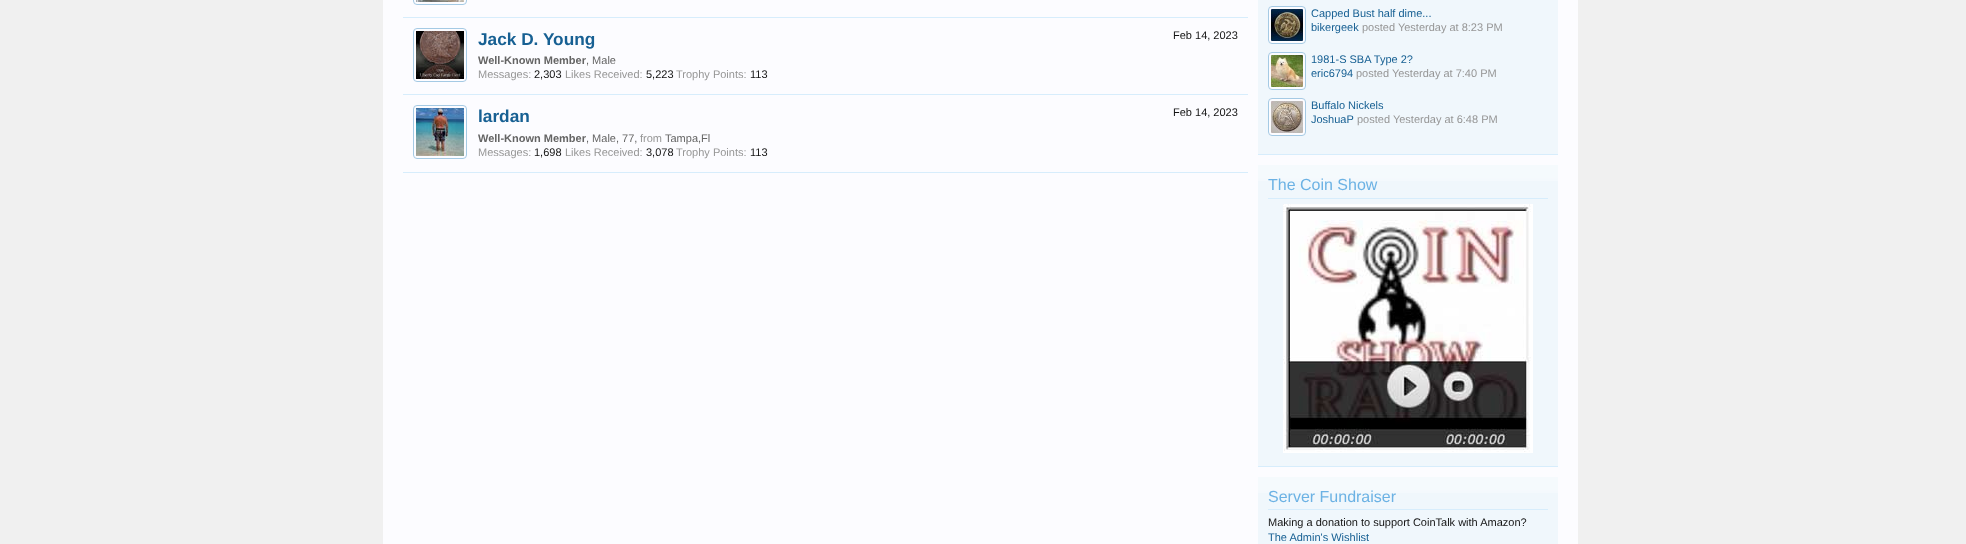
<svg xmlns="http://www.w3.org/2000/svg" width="1966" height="544">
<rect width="100%" height="100%" fill="#f0f0f0"/>
<rect x="383" width="1195" height="544" fill="#fcfcff"/>
<rect x="403" y="17" width="845" height="1" fill="#d7edfc"/>
<image x="416" y="0" width="48" height="2" href="media/1.png"/>
<rect x="413.5" y="-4.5" width="53" height="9" rx="3.5" fill="none" stroke="#a5cae4"/>
<rect x="403" y="94" width="845" height="1" fill="#d7edfc"/>
<image x="416" y="31" width="48" height="48" href="media/2.png"/>
<rect x="413.5" y="28.5" width="53" height="53" rx="3.5" fill="none" stroke="#a5cae4"/>
<text x="478" y="45" style="font-family:Liberation Sans;font-size:17.25px;font-weight:bold;fill:#176093">Jack D. Young</text>
<text x="478" y="64" style="font-family:Liberation Sans;font-size:11px;font-weight:bold;fill:#646464">Well-Known Member</text>
<text x="586" y="64" style="font-family:Liberation Sans;font-size:11px;fill:#646464">, Male</text>
<text x="478" y="78" style="font-family:Liberation Sans;font-size:11px;fill:#969696">Messages:</text>
<text x="534" y="78" style="font-family:Liberation Sans;font-size:11px;fill:#141414">2,303</text>
<text x="565" y="78" style="font-family:Liberation Sans;font-size:11px;fill:#969696">Likes Received:</text>
<text x="646" y="78" style="font-family:Liberation Sans;font-size:11px;fill:#141414">5,223</text>
<text x="676" y="78" style="font-family:Liberation Sans;font-size:11px;fill:#969696">Trophy Points:</text>
<text x="750" y="78" style="font-family:Liberation Sans;font-size:11px;fill:#141414">113</text>
<text x="1173" y="39" style="font-family:Liberation Sans;font-size:11px;fill:#141414">Feb 14, 2023</text>
<rect x="403" y="172" width="845" height="1" fill="#d7edfc"/>
<image x="416" y="108" width="48" height="48" href="media/3.png"/>
<rect x="413.5" y="105.5" width="53" height="53" rx="3.5" fill="none" stroke="#a5cae4"/>
<text x="478" y="122" style="font-family:Liberation Sans;font-size:17.25px;font-weight:bold;fill:#176093">lardan</text>
<text x="478" y="142" style="font-family:Liberation Sans;font-size:11px;font-weight:bold;fill:#646464">Well-Known Member</text>
<text x="586" y="142" style="font-family:Liberation Sans;font-size:11px;fill:#646464">, Male, 77,</text>
<text x="640" y="142" style="font-family:Liberation Sans;font-size:11px;fill:#969696">from</text>
<text x="665" y="142" style="font-family:Liberation Sans;font-size:11px;fill:#646464">Tampa,Fl</text>
<text x="478" y="156" style="font-family:Liberation Sans;font-size:11px;fill:#969696">Messages:</text>
<text x="534" y="156" style="font-family:Liberation Sans;font-size:11px;fill:#141414">1,698</text>
<text x="565" y="156" style="font-family:Liberation Sans;font-size:11px;fill:#969696">Likes Received:</text>
<text x="646" y="156" style="font-family:Liberation Sans;font-size:11px;fill:#141414">3,078</text>
<text x="676" y="156" style="font-family:Liberation Sans;font-size:11px;fill:#969696">Trophy Points:</text>
<text x="750" y="156" style="font-family:Liberation Sans;font-size:11px;fill:#141414">113</text>
<text x="1173" y="116" style="font-family:Liberation Sans;font-size:11px;fill:#141414">Feb 14, 2023</text>
<rect x="1258" width="300" height="154" fill="#f0f7fc"/>
<rect x="1258" y="154" width="300" height="1" fill="#d7edfc"/>
<rect x="1268.5" y="6.5" width="37" height="37" rx="3.5" fill="#fcfcff" stroke="#a5cae4"/>
<image x="1271" y="9" width="32" height="32" href="media/4.png"/>
<text x="1311" y="17" style="font-family:Liberation Sans;font-size:11px;fill:#176093">Capped Bust half dime...</text>
<text x="1311" y="31" style="font-family:Liberation Sans;font-size:11px;fill:#176093">bikergeek</text>
<text x="1362" y="31" style="font-family:Liberation Sans;font-size:11px;fill:#969696">posted Yesterday at 8:23 PM</text>
<rect x="1268.5" y="52.5" width="37" height="37" rx="3.5" fill="#fcfcff" stroke="#a5cae4"/>
<image x="1271" y="55" width="32" height="32" href="media/5.png"/>
<text x="1311" y="63" style="font-family:Liberation Sans;font-size:11px;fill:#176093">1981-S SBA Type 2?</text>
<text x="1311" y="77" style="font-family:Liberation Sans;font-size:11px;fill:#176093">eric6794</text>
<text x="1356" y="77" style="font-family:Liberation Sans;font-size:11px;fill:#969696">posted Yesterday at 7:40 PM</text>
<rect x="1268.5" y="98.5" width="37" height="37" rx="3.5" fill="#fcfcff" stroke="#a5cae4"/>
<image x="1271" y="101" width="32" height="32" href="media/6.png"/>
<text x="1311" y="109" style="font-family:Liberation Sans;font-size:11px;fill:#176093">Buffalo Nickels</text>
<text x="1311" y="123" style="font-family:Liberation Sans;font-size:11px;fill:#176093">JoshuaP</text>
<text x="1357" y="123" style="font-family:Liberation Sans;font-size:11px;fill:#969696">posted Yesterday at 6:48 PM</text>
<rect x="1258" y="165" width="300" height="301" fill="#f0f7fc"/>
<image x="1258" y="165" width="300" height="16" href="media/7.png"/>
<rect x="1258" y="466" width="300" height="1" fill="#d7edfc"/>
<rect x="1268" y="198" width="280" height="1" fill="#d7edfc"/>
<text x="1268" y="190" style="font-family:Liberation Sans;font-size:16px;fill:#6cb2e4">The Coin Show</text>
<image x="1283" y="204" width="250" height="249" href="media/8.png"/>
<rect x="1258" y="477" width="300" height="67" fill="#f0f7fc"/>
<image x="1258" y="477" width="300" height="16" href="media/7.png"/>
<rect x="1268" y="509" width="280" height="1" fill="#d7edfc"/>
<text x="1268" y="502" style="font-family:Liberation Sans;font-size:16px;fill:#6cb2e4">Server Fundraiser</text>
<text x="1268" y="526" style="font-family:Liberation Sans;font-size:11px;fill:#141414">Making a donation to support CoinTalk with Amazon?</text>
<text x="1268" y="541" style="font-family:Liberation Sans;font-size:11px;fill:#176093">The Admin's Wishlist</text>
</svg>
